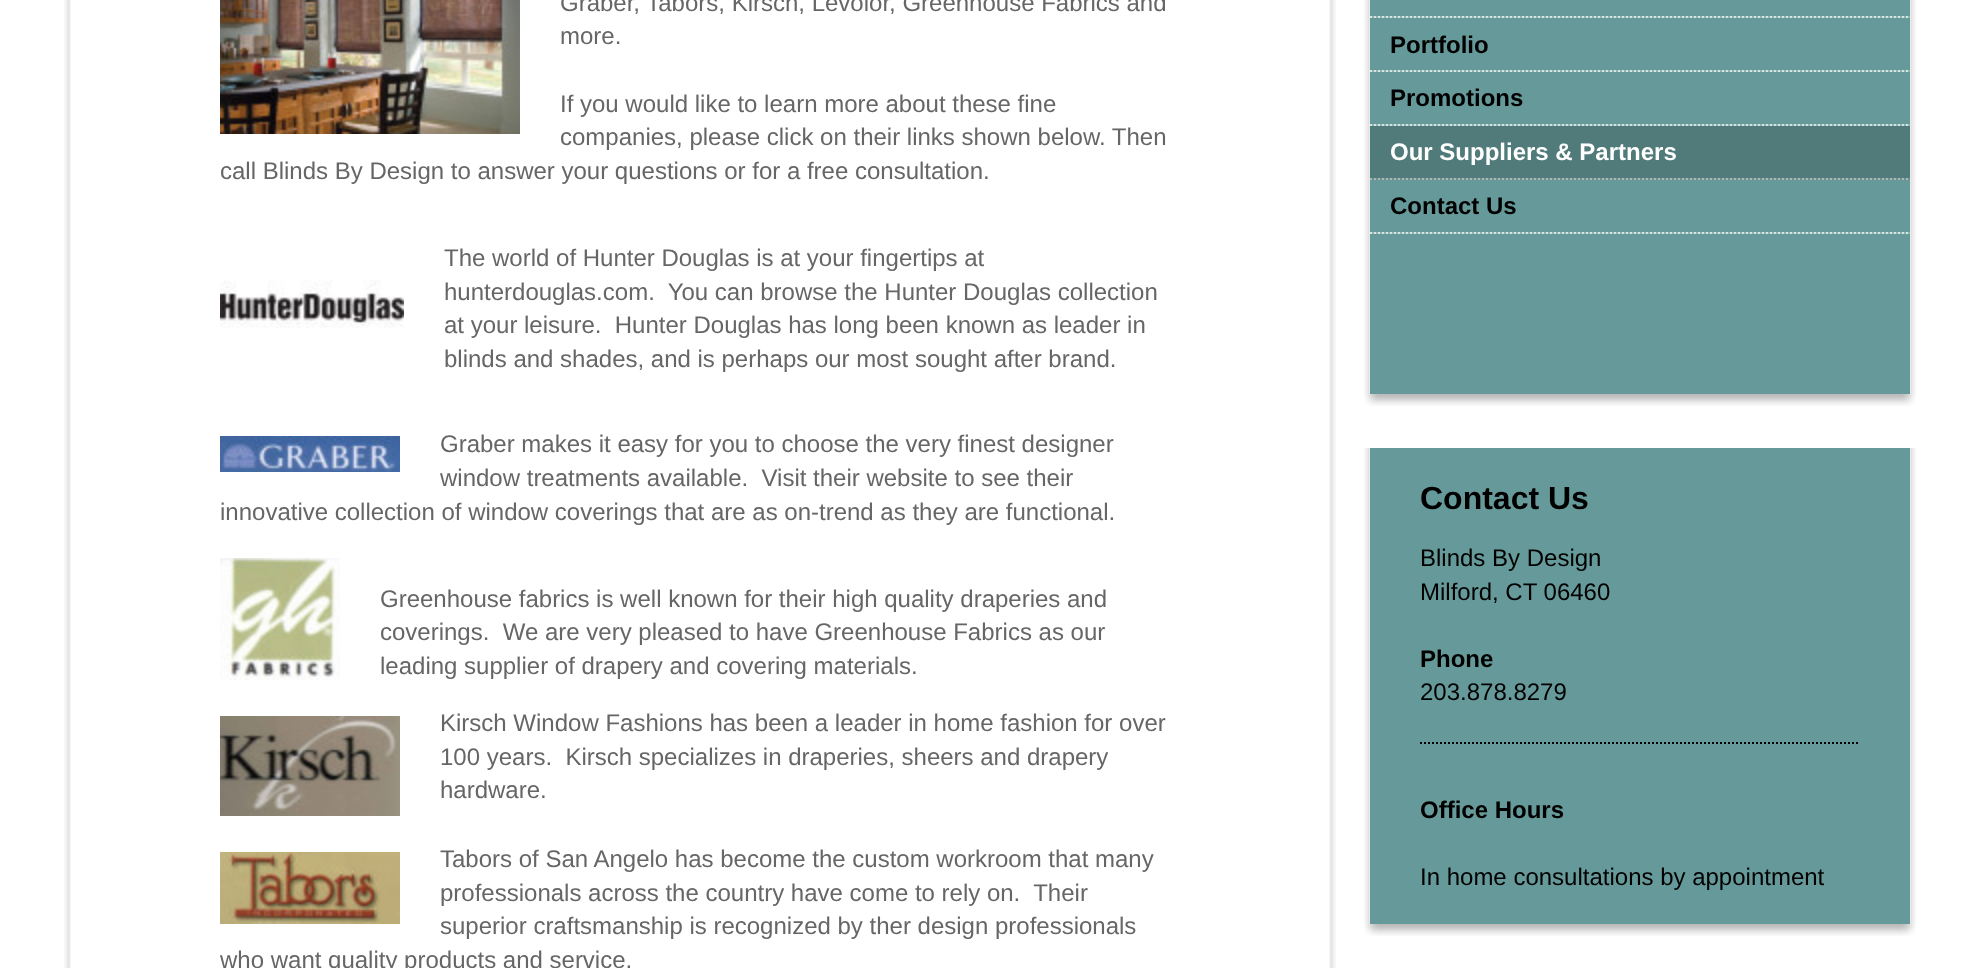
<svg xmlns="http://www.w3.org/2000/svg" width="1980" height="968">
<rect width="100%" height="100%" fill="#fff"/>
<image x="64" y="0" width="1272" height="968" href="media/1.png"/>
<image x="220" y="0" width="300" height="134" href="media/2.png"/>
<text x="560" y="11" style="font-family:Liberation Sans;font-size:24px;fill:#666">Graber, Tabors, Kirsch, Levolor, Greenhouse Fabrics and</text>
<text x="560" y="44" style="font-family:Liberation Sans;font-size:24px;fill:#666">more.</text>
<text x="560" y="112" style="font-family:Liberation Sans;font-size:24px;fill:#666">If you would like to learn more about these fine</text>
<text x="560" y="145" style="font-family:Liberation Sans;font-size:24px;fill:#666">companies, please click on their links shown below. Then</text>
<text x="220" y="179" style="font-family:Liberation Sans;font-size:24px;fill:#666">call Blinds By Design to answer your questions or for a free consultation.</text>
<image x="220" y="280" width="184" height="48" href="media/3.png"/>
<text x="444" y="266" style="font-family:Liberation Sans;font-size:24px;fill:#666">The world of Hunter Douglas is at your fingertips at</text>
<text x="444" y="300" style="font-family:Liberation Sans;font-size:24px;fill:#666" xml:space="preserve">hunterdouglas.com.  You can browse the Hunter Douglas collection</text>
<text x="444" y="333" style="font-family:Liberation Sans;font-size:24px;fill:#666" xml:space="preserve">at your leisure.  Hunter Douglas has long been known as leader in</text>
<text x="444" y="367" style="font-family:Liberation Sans;font-size:24px;fill:#666">blinds and shades, and is perhaps our most sought after brand.</text>
<text x="440" y="452" style="font-family:Liberation Sans;font-size:24px;fill:#666">Graber makes it easy for you to choose the very finest designer</text>
<text x="440" y="486" style="font-family:Liberation Sans;font-size:24px;fill:#666" xml:space="preserve">window treatments available.  Visit their website to see their</text>
<text x="220" y="520" style="font-family:Liberation Sans;font-size:24px;fill:#666">innovative collection of window coverings that are as on-trend as they are functional.</text>
<image x="220" y="436" width="180" height="36" href="media/4.png"/>
<image x="220" y="558" width="120" height="122" href="media/5.png"/>
<text x="380" y="607" style="font-family:Liberation Sans;font-size:24px;fill:#666">Greenhouse fabrics is well known for their high quality draperies and</text>
<text x="380" y="640" style="font-family:Liberation Sans;font-size:24px;fill:#666" xml:space="preserve">coverings.  We are very pleased to have Greenhouse Fabrics as our</text>
<text x="380" y="674" style="font-family:Liberation Sans;font-size:24px;fill:#666">leading supplier of drapery and covering materials.</text>
<image x="220" y="716" width="180" height="100" href="media/6.png"/>
<text x="440" y="731" style="font-family:Liberation Sans;font-size:24px;fill:#666">Kirsch Window Fashions has been a leader in home fashion for over</text>
<text x="440" y="765" style="font-family:Liberation Sans;font-size:24px;fill:#666" xml:space="preserve">100 years.  Kirsch specializes in draperies, sheers and drapery</text>
<text x="440" y="798" style="font-family:Liberation Sans;font-size:24px;fill:#666">hardware.</text>
<text x="440" y="867" style="font-family:Liberation Sans;font-size:24px;fill:#666">Tabors of San Angelo has become the custom workroom that many</text>
<text x="440" y="901" style="font-family:Liberation Sans;font-size:24px;fill:#666" xml:space="preserve">professionals across the country have come to rely on.  Their</text>
<text x="440" y="934" style="font-family:Liberation Sans;font-size:24px;fill:#666">superior craftsmanship is recognized by ther design professionals</text>
<text x="220" y="968" style="font-family:Liberation Sans;font-size:24px;fill:#666">who want quality products and service.</text>
<image x="220" y="852" width="180" height="72" href="media/7.png"/>
<image x="1364" y="394" width="552" height="12" href="media/8.png"/>
<image x="1364" y="0" width="552" height="394" href="media/9.png"/>
<rect x="1370" width="540" height="394" fill="#699"/>
<image x="1370" y="16" width="540" height="2" href="media/10.png"/>
<image x="1370" y="70" width="540" height="2" href="media/10.png"/>
<text x="1390" y="53" style="font-family:Liberation Sans;font-size:24px;font-weight:bold;fill:#000">Portfolio</text>
<image x="1370" y="124" width="540" height="2" href="media/10.png"/>
<text x="1390" y="106" style="font-family:Liberation Sans;font-size:24px;font-weight:bold;fill:#000">Promotions</text>
<image x="1370" y="178" width="540" height="2" href="media/10.png"/>
<rect x="1370" y="126" width="540" height="54" fill="#00000033"/>
<text x="1390" y="160" style="font-family:Liberation Sans;font-size:24px;font-weight:bold;fill:#fff">Our Suppliers &amp; Partners</text>
<image x="1370" y="232" width="540" height="2" href="media/10.png"/>
<text x="1390" y="214" style="font-family:Liberation Sans;font-size:24px;font-weight:bold;fill:#000">Contact Us</text>
<image x="1364" y="924" width="552" height="12" href="media/8.png"/>
<image x="1364" y="448" width="552" height="476" href="media/11.png"/>
<rect x="1370" y="448" width="540" height="476" fill="#699"/>
<text x="1420" y="509" style="font-family:Liberation Sans;font-size:32px;font-weight:bold;fill:#000">Contact Us</text>
<text x="1420" y="566" style="font-family:Liberation Sans;font-size:24px;fill:#000">Blinds By Design</text>
<text x="1420" y="600" style="font-family:Liberation Sans;font-size:24px;fill:#000">Milford, CT 06460</text>
<text x="1420" y="667" style="font-family:Liberation Sans;font-size:24px;font-weight:bold;fill:#000">Phone</text>
<text x="1420" y="700" style="font-family:Liberation Sans;font-size:24px;fill:#000">203.878.8279</text>
<path d="M1420 743h440" fill="none" stroke="#000" stroke-width="2" stroke-dasharray="2 2"/>
<text x="1420" y="818" style="font-family:Liberation Sans;font-size:24px;font-weight:bold;fill:#000">Office Hours</text>
<text x="1420" y="885" style="font-family:Liberation Sans;font-size:24px;fill:#000">In home consultations by appointment</text>
</svg>
